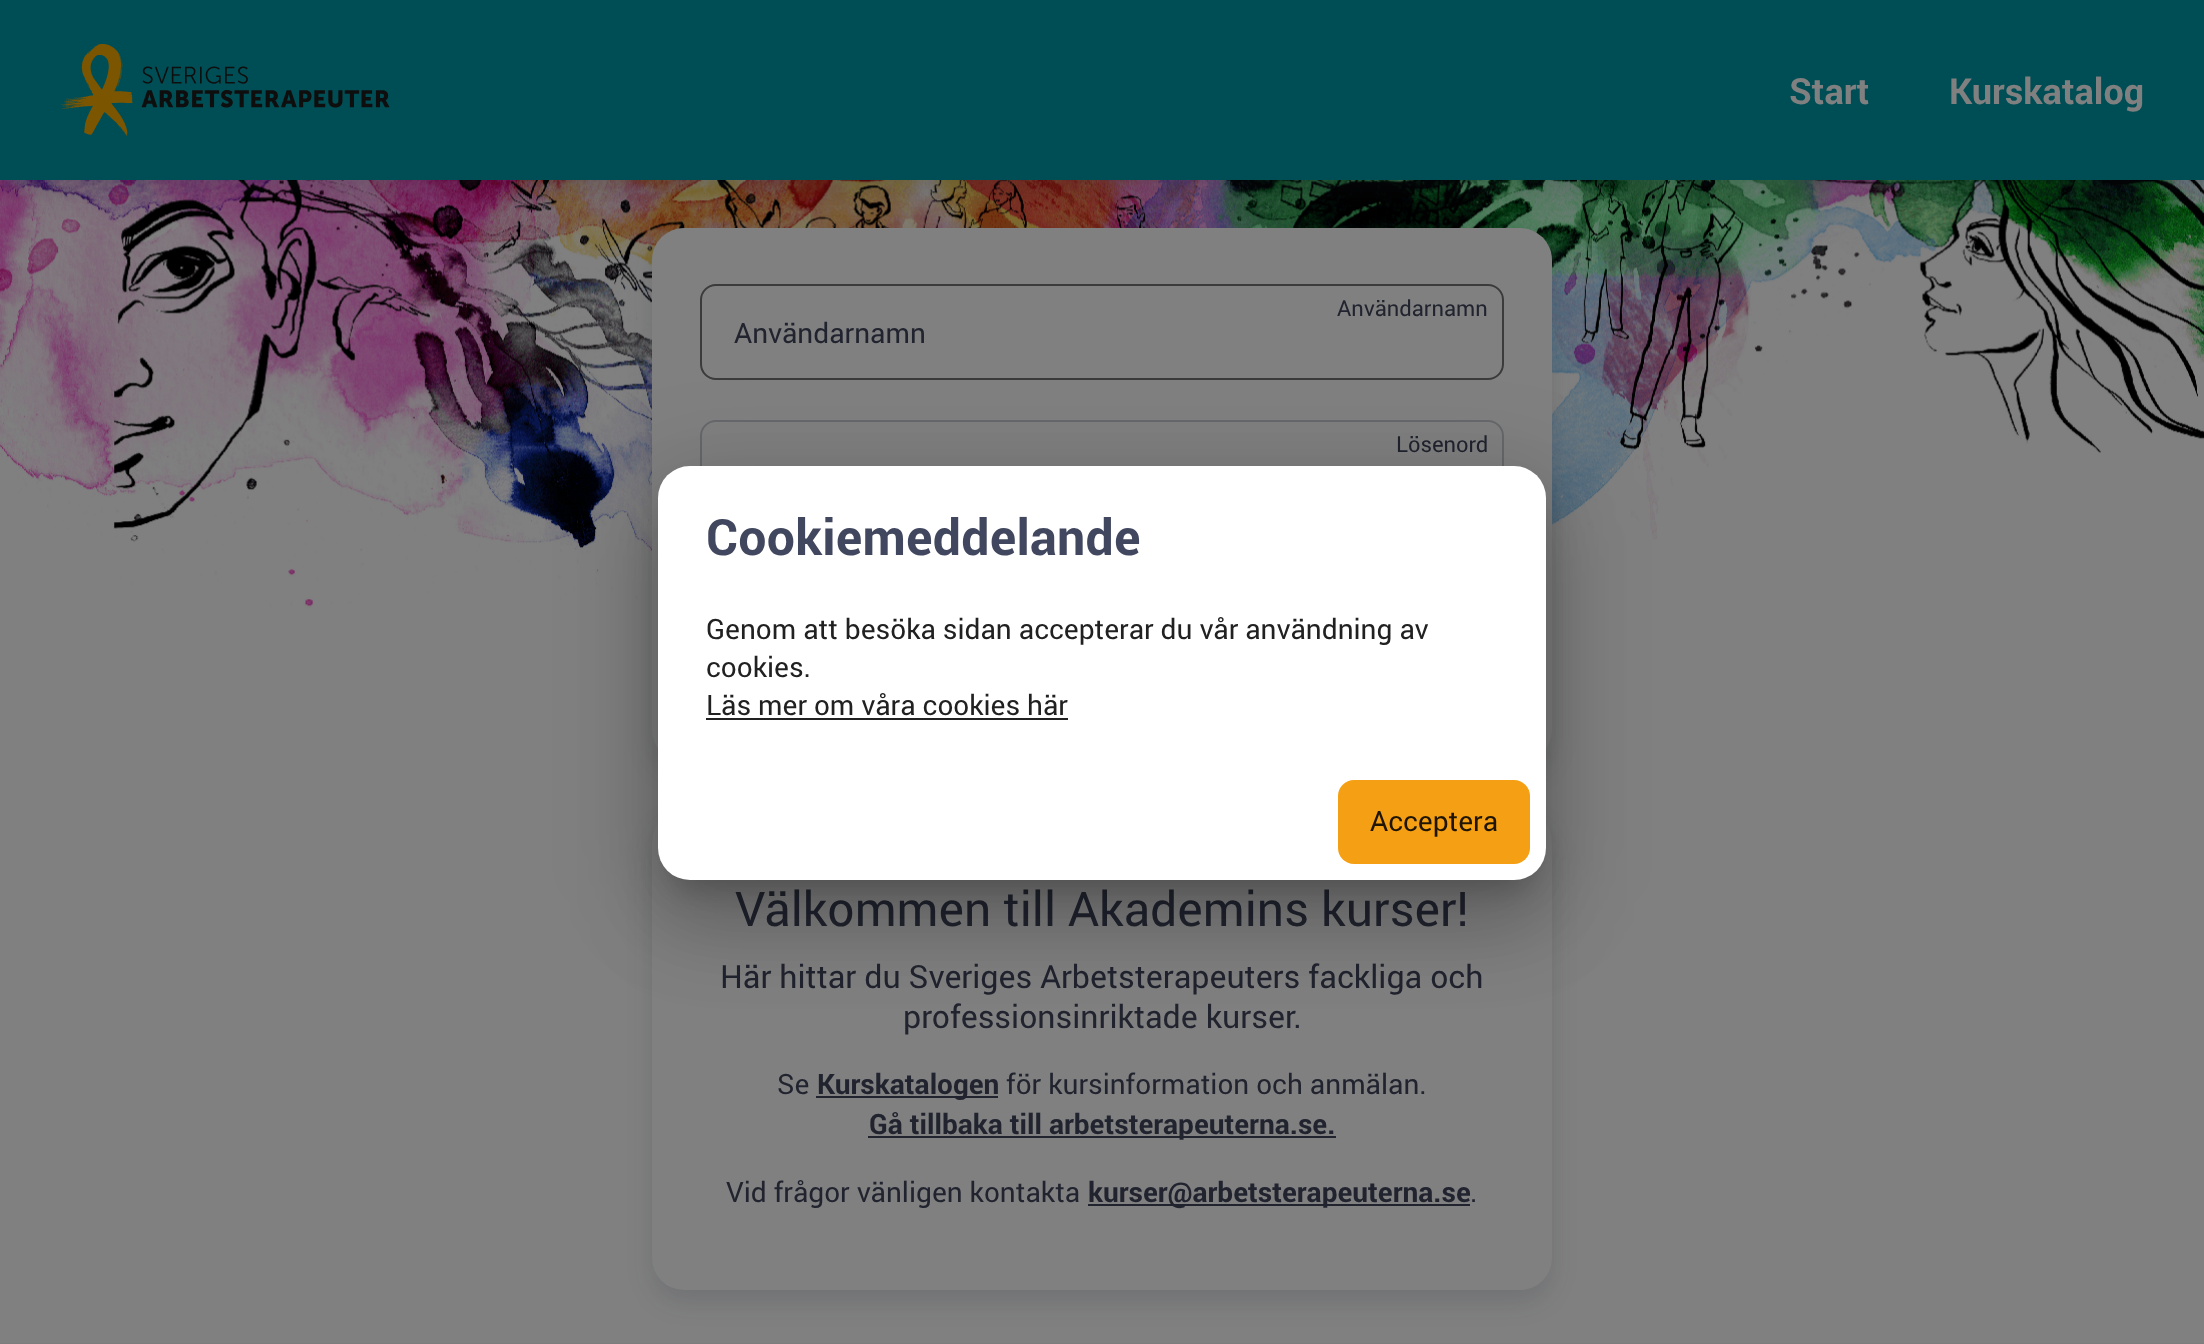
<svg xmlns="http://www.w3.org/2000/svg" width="2204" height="1344">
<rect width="100%" height="100%" fill="#7d7d7d"/>
<image x="0" y="180" width="2204" height="1163" href="media/1.png"/>
<rect x="652" y="822" width="900" height="480" rx="32" fill="#1e243026" filter="blur(12px)"/>
<rect x="652" y="810" width="900" height="480" rx="32" fill="#808080"/>
<rect x="652" y="240" width="900" height="534" rx="32" fill="#1e243026" filter="blur(12px)"/>
<rect x="652" y="228" width="900" height="534" rx="32" fill="#808080"/>
<rect y="12" width="2204" height="180" fill="#1e243026" filter="blur(12px)"/>
<rect width="2204" height="180" fill="#004e55"/>
<image x="61" y="44" width="329" height="92" href="media/2.png"/>
<text x="1789" y="104" style="font-family:Roboto;font-size:36px;font-weight:bold;fill:#808080">Start</text>
<text x="1949" y="104" style="font-family:Roboto;font-size:36px;font-weight:bold;fill:#808080">Kurskatalog</text>
<rect x="701" y="285" width="802" height="94" rx="15" fill="none" stroke="#3b3b3b" stroke-width="2"/>
<text x="1337" y="316" style="font-family:Roboto;font-size:22px;fill:#21242f">Användarnamn</text>
<text x="734" y="343" style="font-family:Roboto;font-size:28px;fill:#21242f">Användarnamn</text>
<rect x="701" y="421" width="802" height="94" rx="15" fill="none" stroke="#67686b" stroke-width="2"/>
<text x="1396" y="452" style="font-family:Roboto;font-size:22px;fill:#21242f">Lösenord</text>
<text x="735" y="926" style="font-family:Roboto;font-size:48px;fill:#21242f">Välkommen till Akademins kurser!</text>
<text x="720" y="988" style="font-family:Roboto;font-size:32px;fill:#21242f">Här hittar du Sveriges Arbetsterapeuters fackliga och</text>
<text x="903" y="1028" style="font-family:Roboto;font-size:32px;fill:#21242f">professionsinriktade kurser.</text>
<text x="777" y="1094" style="font-family:Roboto;font-size:28px;fill:#21242f">Se</text>
<rect x="816" y="1096" width="182" height="2" fill="#21242f"/>
<text x="817" y="1094" style="font-family:Roboto;font-size:28px;font-weight:bold;fill:#21242f">Kurskatalogen</text>
<text x="1006" y="1094" style="font-family:Roboto;font-size:28px;fill:#21242f">för kursinformation och anmälan.</text>
<rect x="868" y="1136" width="468" height="2" fill="#21242f"/>
<text x="869" y="1134" style="font-family:Roboto;font-size:28px;font-weight:bold;fill:#21242f">Gå tillbaka till arbetsterapeuterna.se.</text>
<text x="726" y="1202" style="font-family:Roboto;font-size:28px;fill:#21242f">Vid frågor vänligen kontakta</text>
<rect x="1088" y="1204" width="382" height="2" fill="#21242f"/>
<text x="1088" y="1202" style="font-family:Roboto;font-size:28px;font-weight:bold;fill:#21242f">kurser@arbetsterapeuterna.se</text>
<text x="1470" y="1202" style="font-family:Roboto;font-size:28px;fill:#21242f">.</text>
<rect x="642" y="468" width="920" height="446" rx="48" fill="#0000001f" filter="blur(46px)"/>
<rect x="652" y="508" width="900" height="426" rx="38" fill="#00000024" filter="blur(38px)"/>
<rect x="672" y="502" width="860" height="386" rx="18" fill="#00000033" filter="blur(15px)"/>
<rect x="658" y="466" width="888" height="414" rx="32" fill="#fff"/>
<text x="706" y="555" style="font-family:Roboto;font-size:50px;font-weight:bold;letter-spacing:0.25px;fill:#41475e">Cookiemeddelande</text>
<text x="706" y="639" style="font-family:Roboto;font-size:28px;fill:#212121">Genom att besöka sidan accepterar du vår användning av</text>
<text x="706" y="677" style="font-family:Roboto;font-size:28px;fill:#212121">cookies.</text>
<text x="706" y="715" style="font-family:Roboto;font-size:28px;fill:#212121">Läs mer om våra cookies här</text>
<rect x="706" y="718" width="362" height="2" fill="#212121"/>
<rect x="1338" y="780" width="192" height="84" rx="16" fill="#f5a014"/>
<text x="1370" y="831" style="font-family:Roboto;font-size:28px;fill:#201503">Acceptera</text>
</svg>
